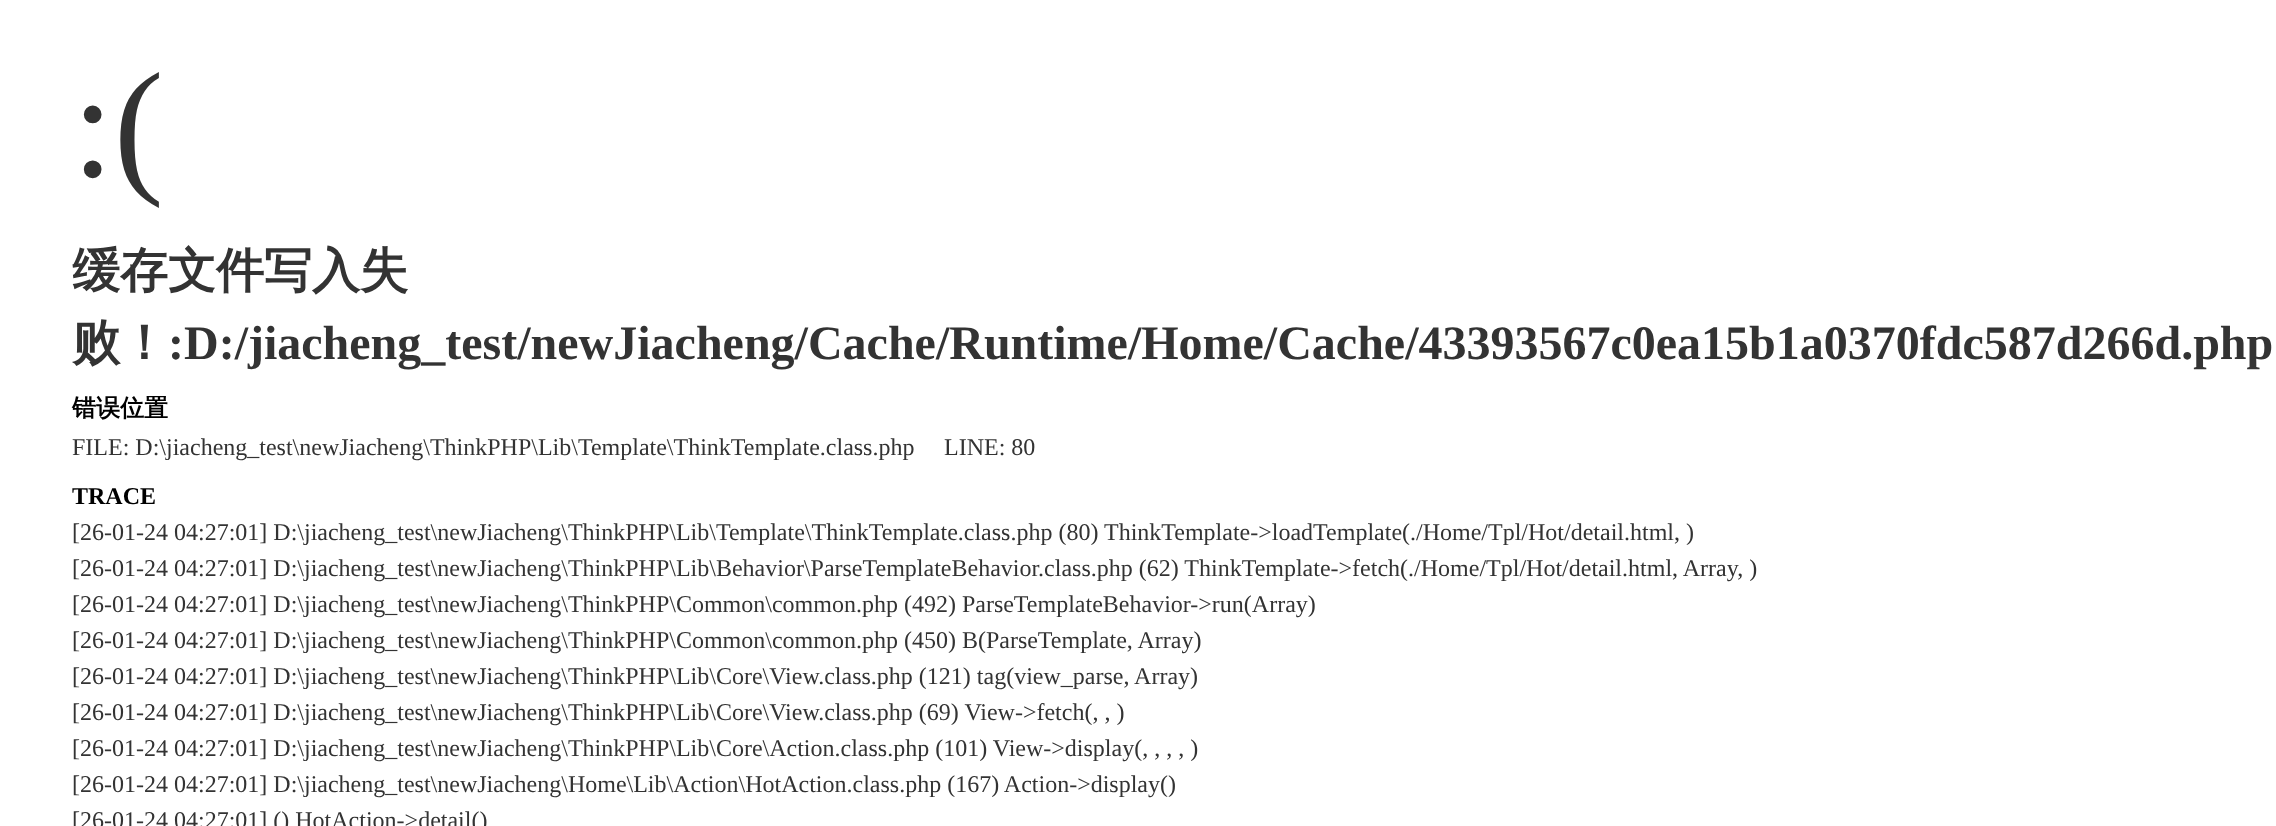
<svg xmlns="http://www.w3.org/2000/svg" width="2276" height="826">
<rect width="100%" height="100%" fill="#fff"/>
<text x="72" y="176" style="font-family:Liberation Serif;font-size:150px;fill:#333">:(</text>
<text x="72" y="287" style="font-family:WenQuanYi Zen Hei;font-size:48px;font-weight:bold;fill:#333">缓存文件写入失</text>
<text x="72" y="359" style="font-family:WenQuanYi Zen Hei;font-size:48px;font-weight:bold;fill:#333">败！</text>
<text x="168" y="359" style="font-family:Liberation Serif;font-size:48px;font-weight:bold;fill:#333">:D:/jiacheng_test/newJiacheng/Cache/Runtime/Home/Cache/43393567c0ea15b1a0370fdc587d266d.php</text>
<text x="72" y="416" style="font-family:WenQuanYi Zen Hei;font-size:24px;font-weight:bold;fill:#000">错误位置</text>
<text x="72" y="455" style="font-family:Liberation Serif;font-size:24px;fill:#333">FILE: D:\jiacheng_test\newJiacheng\ThinkPHP\Lib\Template\ThinkTemplate.class.php</text>
<text x="944" y="455" style="font-family:Liberation Serif;font-size:24px;fill:#333">LINE: 80</text>
<text x="72" y="504" style="font-family:Liberation Serif;font-size:24px;font-weight:bold;fill:#000">TRACE</text>
<text x="72" y="540" style="font-family:Liberation Serif;font-size:24px;fill:#333">[26-01-24 04:27:01] D:\jiacheng_test\newJiacheng\ThinkPHP\Lib\Template\ThinkTemplate.class.php (80) ThinkTemplate-&gt;loadTemplate(./Home/Tpl/Hot/detail.html, )</text>
<text x="72" y="576" style="font-family:Liberation Serif;font-size:24px;fill:#333">[26-01-24 04:27:01] D:\jiacheng_test\newJiacheng\ThinkPHP\Lib\Behavior\ParseTemplateBehavior.class.php (62) ThinkTemplate-&gt;fetch(./Home/Tpl/Hot/detail.html, Array, )</text>
<text x="72" y="612" style="font-family:Liberation Serif;font-size:24px;fill:#333">[26-01-24 04:27:01] D:\jiacheng_test\newJiacheng\ThinkPHP\Common\common.php (492) ParseTemplateBehavior-&gt;run(Array)</text>
<text x="72" y="648" style="font-family:Liberation Serif;font-size:24px;fill:#333">[26-01-24 04:27:01] D:\jiacheng_test\newJiacheng\ThinkPHP\Common\common.php (450) B(ParseTemplate, Array)</text>
<text x="72" y="684" style="font-family:Liberation Serif;font-size:24px;fill:#333">[26-01-24 04:27:01] D:\jiacheng_test\newJiacheng\ThinkPHP\Lib\Core\View.class.php (121) tag(view_parse, Array)</text>
<text x="72" y="720" style="font-family:Liberation Serif;font-size:24px;fill:#333">[26-01-24 04:27:01] D:\jiacheng_test\newJiacheng\ThinkPHP\Lib\Core\View.class.php (69) View-&gt;fetch(, , )</text>
<text x="72" y="756" style="font-family:Liberation Serif;font-size:24px;fill:#333">[26-01-24 04:27:01] D:\jiacheng_test\newJiacheng\ThinkPHP\Lib\Core\Action.class.php (101) View-&gt;display(, , , , )</text>
<text x="72" y="792" style="font-family:Liberation Serif;font-size:24px;fill:#333">[26-01-24 04:27:01] D:\jiacheng_test\newJiacheng\Home\Lib\Action\HotAction.class.php (167) Action-&gt;display()</text>
<text x="72" y="828" style="font-family:Liberation Serif;font-size:24px;fill:#333">[26-01-24 04:27:01] () HotAction-&gt;detail()</text>
</svg>
